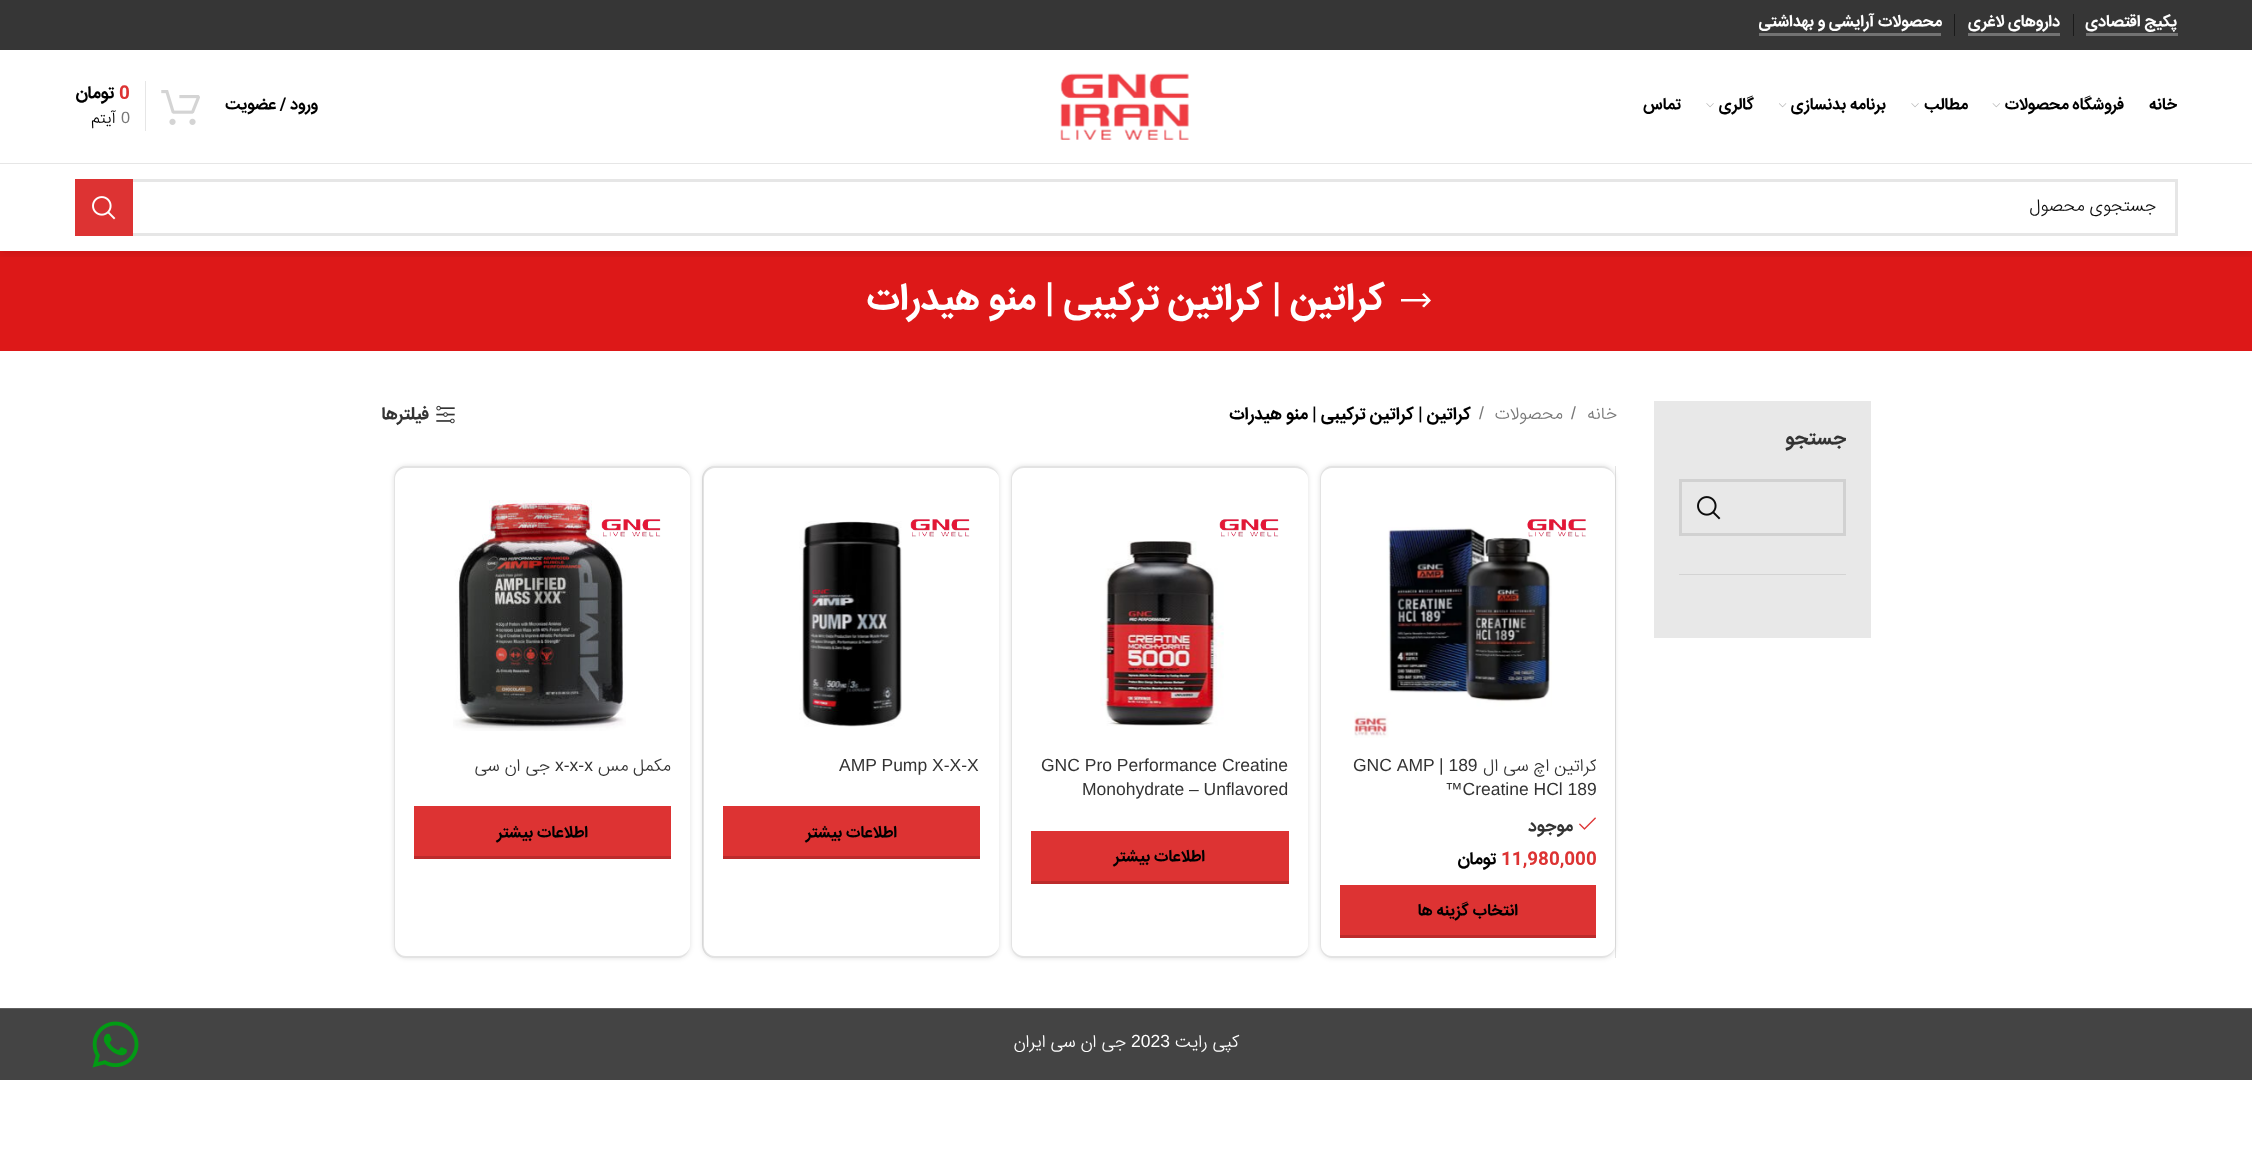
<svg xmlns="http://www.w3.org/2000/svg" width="2252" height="1162">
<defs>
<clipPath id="clip1"><rect x="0" y="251" width="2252" height="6"/></clipPath>
<clipPath id="clip2"><path d="M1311 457h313v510h-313zm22 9h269c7 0 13 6 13 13v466c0 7-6 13-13 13h-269c-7 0-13-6-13-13v-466c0-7 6-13 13-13z" clip-rule="evenodd"/></clipPath>
<clipPath id="clip3"><rect x="1340" y="755" width="256" height="50"/></clipPath>
<clipPath id="clip4"><path d="M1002 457h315v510h-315zm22 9h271c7 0 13 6 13 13v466c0 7-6 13-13 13h-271c-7 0-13-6-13-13v-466c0-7 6-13 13-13z" clip-rule="evenodd"/></clipPath>
<clipPath id="clip5"><path d="M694 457h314v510h-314zm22 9h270c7 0 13 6 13 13v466c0 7-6 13-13 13h-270c-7 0-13-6-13-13v-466c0-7 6-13 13-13z" clip-rule="evenodd"/></clipPath>
<clipPath id="clip6"><path d="M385 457h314v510h-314zm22 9h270c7 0 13 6 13 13v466c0 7-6 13-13 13h-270c-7 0-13-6-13-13v-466c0-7 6-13 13-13z" clip-rule="evenodd"/></clipPath>
</defs>
<rect width="100%" height="100%" fill="#fff"/>
<rect width="2252" height="50" fill="#363636"/>
<rect x="2086" y="33" width="92" height="3" fill="#727272"/>
<text x="2177" y="26" style="font-family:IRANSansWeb;font-size:16.25px;font-weight:bold;direction:rtl;fill:#fff">پکیج اقتصادی</text>
<rect x="2073" y="14" width="1" height="22" fill="#1a1a1a"/>
<rect x="1968" y="33" width="92" height="3" fill="#727272"/>
<text x="2060" y="26" style="font-family:IRANSansWeb;font-size:16.25px;font-weight:bold;direction:rtl;fill:#fff">داروهای لاغری</text>
<rect x="1954" y="14" width="1" height="22" fill="#1a1a1a"/>
<rect x="1759" y="33" width="182" height="3" fill="#727272"/>
<text x="1942" y="26" style="font-family:IRANSansWeb;font-size:16.25px;font-weight:bold;direction:rtl;fill:#fff">محصولات آرایشی و بهداشتی</text>
<rect y="251" width="2252" height="100" fill="#dd1818"/>
<g clip-path="url(#clip1)">
<rect y="165" width="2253" height="88" fill="#0000001a" filter="blur(5px)"/>
</g>
<rect y="159" width="2252" height="4" fill="#fff"/>
<rect y="163" width="2252" height="1" fill="#e6e6e6"/>
<text x="2177" y="109" style="font-family:IRANSansWeb;font-size:16.25px;font-weight:bold;direction:rtl;fill:#000">خانه</text>
<text x="2124" y="109" style="font-family:IRANSansWeb;font-size:16.25px;font-weight:bold;direction:rtl;fill:#000">فروشگاه محصولات</text>
<image x="1992" y="103" width="8" height="5" href="media/1.png"/>
<text x="1968" y="109" style="font-family:IRANSansWeb;font-size:16.25px;font-weight:bold;direction:rtl;fill:#000">مطالب</text>
<image x="1911" y="103" width="8" height="5" href="media/2.png"/>
<text x="1886" y="109" style="font-family:IRANSansWeb;font-size:16.25px;font-weight:bold;direction:rtl;fill:#000">برنامه بدنسازی</text>
<image x="1779" y="103" width="8" height="5" href="media/3.png"/>
<text x="1754" y="109" style="font-family:IRANSansWeb;font-size:16.25px;font-weight:bold;direction:rtl;fill:#000">گالری</text>
<image x="1706" y="103" width="8" height="5" href="media/2.png"/>
<text x="1681" y="109" style="font-family:IRANSansWeb;font-size:16.25px;font-weight:bold;direction:rtl;fill:#000">تماس</text>
<image x="1060" y="73" width="129" height="67" href="media/4.png"/>
<text x="318" y="109" style="font-family:IRANSansWeb;font-size:16.25px;font-weight:bold;direction:rtl;fill:#000">ورود / عضویت</text>
<image x="161" y="90" width="39" height="35" href="media/5.png"/>
<rect x="145" y="81" width="1" height="50" fill="#e6e6e6"/>
<text x="119" y="98" style="font-family:IRANSansWeb;font-size:17.5px;font-weight:bold;fill:#d33">0</text>
<text x="115" y="98" style="font-family:IRANSansWeb;font-size:17.5px;font-weight:bold;direction:rtl;fill:#000">تومان</text>
<text x="121" y="123" style="font-family:Liberation Sans;font-size:16.25px;fill:#777">0</text>
<text x="116" y="123" style="font-family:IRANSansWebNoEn;font-size:16.25px;font-weight:300;direction:rtl;fill:#000">آیتم</text>
<rect x="76.5" y="180.5" width="2100" height="54" fill="none" stroke="#e6e6e6" stroke-width="3"/>
<text x="2156" y="211" style="font-family:IRANSansWebNoEn;font-size:17.5px;font-weight:300;direction:rtl;fill:#0c0c0c">جستجوی محصول</text>
<rect x="75" y="179" width="58" height="57" fill="#d33"/>
<image x="92" y="196" width="24" height="24" href="media/6.png"/>
<path d="M1431 300.5l-7-7.5l-2 1.5l4.5 4.5h-25.5v2.5h25.5l-4.5 4.5l2 1.5z" fill="#fff"/>
<text x="1385" y="309" style="font-family:IRANSansWeb;font-size:37.5px;font-weight:bold;direction:rtl;fill:#fff">کراتین | کراتین ترکیبی | منو هیدرات</text>
<rect x="1654" y="401" width="217" height="237" fill="#e8e8e8"/>
<text x="1846" y="444" style="font-family:IRANSansWeb;font-size:20px;font-weight:bold;direction:rtl;fill:#333">جستجو</text>
<rect x="1680.5" y="480.5" width="164" height="54" fill="none" stroke="#d1d1d1" stroke-width="3"/>
<image x="1697" y="496" width="24" height="24" href="media/7.png"/>
<rect x="1679" y="574" width="167" height="1" fill="#d3d3d3"/>
<text x="1617" y="419" style="font-family:IRANSansWebNoEn;font-size:17.5px;font-weight:300;direction:rtl;fill:#777">خانه</text>
<text x="1571" y="419" style="font-family:Liberation Sans;font-size:17.5px;fill:#777">/</text>
<text x="1563" y="419" style="font-family:IRANSansWebNoEn;font-size:17.5px;font-weight:300;direction:rtl;fill:#777">محصولات</text>
<text x="1479" y="419" style="font-family:Liberation Sans;font-size:17.5px;fill:#777">/</text>
<text x="1471" y="419" style="font-family:IRANSansWeb;font-size:17.5px;font-weight:bold;direction:rtl;fill:#000">کراتین | کراتین ترکیبی | منو هیدرات</text>
<image x="436" y="405" width="19" height="19" href="media/8.png"/>
<text x="429" y="419" style="font-family:IRANSansWeb;font-size:17.5px;font-weight:bold;direction:rtl;fill:#333">فیلترها</text>
<rect x="1615" y="466" width="1" height="492" fill="#e4e4e4"/>
<g clip-path="url(#clip2)">
<rect x="1320" y="466" width="295" height="492" rx="13" fill="#0000001f" filter="blur(2.5px)"/>
</g>
<path d="M1332 466h270c7 0 13 6 13 13v466c0 7-6 13-13 13h-270c-6 0-12-6-12-13v-466c0-7 6-13 12-13zm0 2h270c7 0 13 5 13 11v466c0 6-6 11-13 11h-270c-6 0-11-5-11-11v-466c0-6 5-11 11-11z" fill="#0000001c" fill-rule="evenodd"/>
<image x="1354" y="527" width="198" height="211" href="media/10.png"/>
<image x="1527" y="519" width="59" height="18" href="media/9.png"/>
<g clip-path="url(#clip3)">
<text x="1597" y="771" style="font-family:IRANSansWebNoEn;font-size:17.5px;font-weight:300;direction:rtl;fill:#333">کراتین اچ سی ال</text>
</g>
<text x="1439" y="771" style="font-family:Liberation Sans;font-size:17.5px;fill:#333">| 189</text>
<text x="1353" y="771" word-spacing="1" style="font-family:Liberation Sans;font-size:17.5px;fill:#333">GNC AMP</text>
<text x="1445" y="795" style="font-family:Liberation Sans;font-size:17.5px;fill:#333">™Creatine HCl 189</text>
<image x="1579" y="817" width="17" height="13" href="media/11.png"/>
<text x="1573" y="831" style="font-family:IRANSansWeb;font-size:17.5px;font-weight:bold;direction:rtl;fill:#333">موجود</text>
<text x="1501" y="864" style="font-family:IRANSansWeb;font-size:17.5px;font-weight:bold;fill:#d33">11,980,000</text>
<text x="1497" y="864" style="font-family:IRANSansWeb;font-size:17.5px;font-weight:bold;direction:rtl;fill:#000">تومان</text>
<rect x="1340" y="885" width="256" height="50" fill="#d33"/>
<rect x="1340" y="935" width="256" height="3" fill="#bc2b2b"/>
<text x="1518" y="915" style="font-family:IRANSansWeb;font-size:16.25px;font-weight:bold;direction:rtl;fill:#000">انتخاب گزینه ها</text>
<g clip-path="url(#clip4)">
<rect x="1011" y="466" width="297" height="492" rx="13" fill="#0000001f" filter="blur(2.5px)"/>
</g>
<path d="M1024 466h271c7 0 13 6 13 13v466c0 7-6 13-13 13h-271c-7 0-13-6-13-13v-466c0-7 6-13 13-13zm0 2h271c7 0 13 5 13 11v466c0 6-6 11-13 11h-271c-6 0-12-5-12-11v-466c0-6 6-11 12-11z" fill="#0000001c" fill-rule="evenodd"/>
<image x="1219" y="519" width="60" height="18" href="media/12.png"/>
<image x="1100" y="541" width="124" height="185" href="media/13.png"/>
<text x="1041" y="771" style="font-family:Liberation Sans;font-size:17.5px;fill:#333">GNC Pro Performance Creatine</text>
<text x="1082" y="795" style="font-family:Liberation Sans;font-size:17.5px;fill:#333">Monohydrate – Unflavored</text>
<rect x="1031" y="831" width="258" height="50" fill="#d33"/>
<rect x="1031" y="881" width="258" height="3" fill="#bc2b2b"/>
<text x="1205" y="861" style="font-family:IRANSansWeb;font-size:16.25px;font-weight:bold;direction:rtl;fill:#000">اطلاعات بیشتر</text>
<g clip-path="url(#clip5)">
<rect x="703" y="466" width="296" height="492" rx="13" fill="#0000001f" filter="blur(2.5px)"/>
</g>
<path d="M715 466h271c7 0 13 6 13 13v466c0 7-6 13-13 13h-271c-7 0-13-6-13-13v-466c0-7 6-13 13-13zm0 2h271c7 0 13 5 13 11v466c0 6-6 11-13 11h-271c-6 0-11-5-11-11v-466c0-6 5-11 11-11z" fill="#0000001c" fill-rule="evenodd"/>
<image x="910" y="519" width="60" height="18" href="media/12.png"/>
<image x="799" y="521" width="103" height="206" href="media/14.png"/>
<text x="839" y="771" style="font-family:Liberation Sans;font-size:17.5px;fill:#333">AMP Pump X-X-X</text>
<rect x="723" y="806" width="257" height="50" fill="#d33"/>
<rect x="723" y="856" width="257" height="3" fill="#bc2b2b"/>
<text x="897" y="837" style="font-family:IRANSansWeb;font-size:16.25px;font-weight:bold;direction:rtl;fill:#000">اطلاعات بیشتر</text>
<g clip-path="url(#clip6)">
<rect x="394" y="466" width="296" height="492" rx="13" fill="#0000001f" filter="blur(2.5px)"/>
</g>
<path d="M406 466h272c6 0 12 6 12 13v466c0 7-6 13-12 13h-272c-7 0-12-6-12-13v-466c0-7 5-13 12-13zm0 2h272c6 0 12 5 12 11v466c0 6-6 11-12 11h-272c-6 0-11-5-11-11v-466c0-6 5-11 11-11z" fill="#0000001c" fill-rule="evenodd"/>
<image x="453" y="500" width="173" height="231" href="media/15.png"/>
<image x="601" y="519" width="60" height="18" href="media/12.png"/>
<text x="671" y="771" style="font-family:IRANSansWebNoEn;font-size:17.5px;font-weight:300;direction:rtl;fill:#333">مکمل مس</text>
<text x="555" y="771" style="font-family:Liberation Sans;font-size:17.5px;fill:#333">x-x-x</text>
<text x="550" y="771" style="font-family:IRANSansWebNoEn;font-size:17.5px;font-weight:300;direction:rtl;fill:#333">جی ان سی</text>
<rect x="414" y="806" width="257" height="50" fill="#d33"/>
<rect x="414" y="856" width="257" height="3" fill="#bc2b2b"/>
<text x="588" y="837" style="font-family:IRANSansWeb;font-size:16.25px;font-weight:bold;direction:rtl;fill:#000">اطلاعات بیشتر</text>
<rect y="1009" width="2252" height="71" fill="#444"/>
<rect y="1008" width="2252" height="1" fill="#606060"/>
<text x="1239" y="1047" style="font-family:IRANSansWebNoEn;font-size:17.5px;font-weight:300;direction:rtl;fill:#fff">کپی رایت</text>
<text x="1131" y="1047" style="font-family:Liberation Sans;font-size:17.5px;fill:#fff">2023</text>
<text x="1126" y="1047" style="font-family:IRANSansWebNoEn;font-size:17.5px;font-weight:300;direction:rtl;fill:#fff">جی ان سی ایران</text>
<image x="92" y="1021" width="47" height="47" href="media/16.png"/>
</svg>
